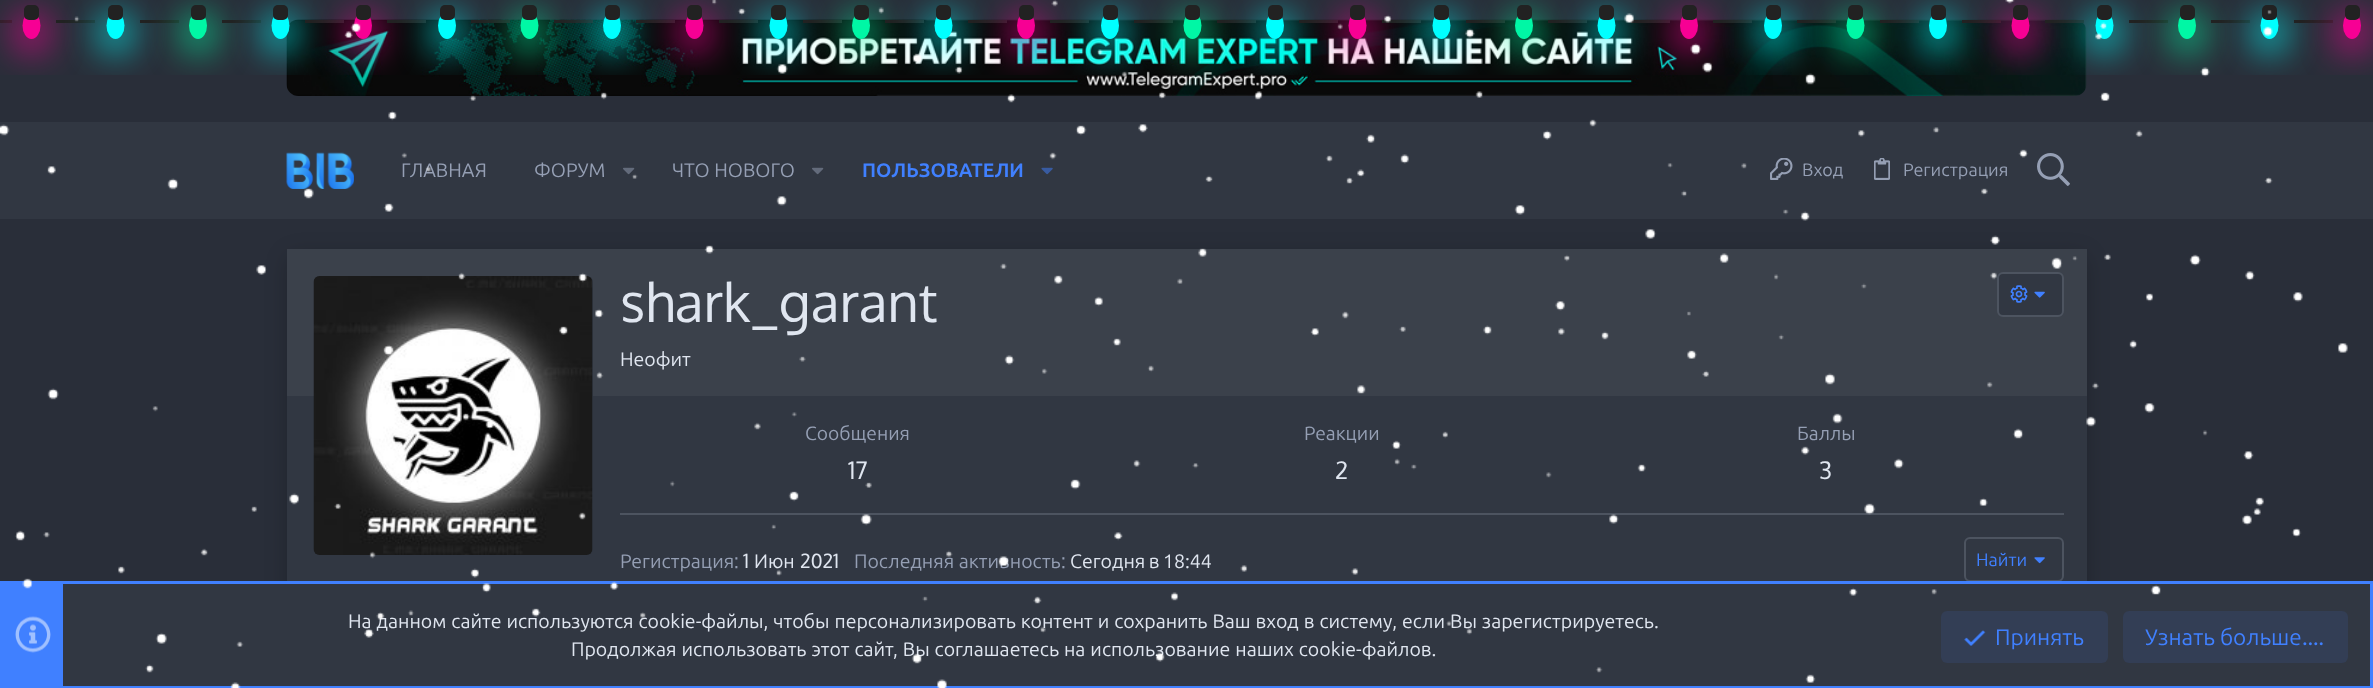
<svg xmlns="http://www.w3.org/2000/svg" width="2373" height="688">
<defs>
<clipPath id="clip1"><rect x="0" y="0" width="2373" height="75"/></clipPath>
</defs>
<rect width="100%" height="100%" fill="#292e39"/>
<rect y="20" width="12" height="3" fill="#222"/>
<g clip-path="url(#clip1)">
<rect x="18" y="15" width="27" height="36" rx="13.5" fill="#f70094" filter="blur(18px)"/>
</g>
<ellipse cx="31.5" cy="25.5" rx="9" ry="13.5" fill="#f70094"/>
<rect x="24" y="5" width="15" height="15" rx="5" fill="#222"/>
<rect x="56" y="20" width="39" height="3" fill="#222"/>
<g clip-path="url(#clip1)">
<rect x="102" y="15" width="27" height="36" rx="13.5" fill="#0ff" filter="blur(18px)"/>
</g>
<ellipse cx="115.5" cy="25.5" rx="9" ry="13.5" fill="#0ff"/>
<rect x="108" y="5" width="15" height="15" rx="5" fill="#222"/>
<rect x="140" y="20" width="39" height="3" fill="#222"/>
<g clip-path="url(#clip1)">
<rect x="185" y="15" width="27" height="36" rx="13.5" fill="#00f7a5" filter="blur(18px)"/>
</g>
<ellipse cx="198" cy="25.5" rx="9" ry="13.5" fill="#00f7a5"/>
<rect x="191" y="5" width="15" height="15" rx="5" fill="#222"/>
<rect x="222" y="20" width="39" height="3" fill="#222"/>
<image x="286" y="19" width="1801" height="77" href="media/2.png"/>
<g clip-path="url(#clip1)">
<rect x="267" y="15" width="27" height="36" rx="13.5" fill="#0ff" filter="blur(18px)"/>
</g>
<ellipse cx="280.5" cy="25.5" rx="9" ry="13.5" fill="#0ff"/>
<rect x="273" y="5" width="15" height="15" rx="5" fill="#222"/>
<rect x="305" y="20" width="39" height="3" fill="#222"/>
<g clip-path="url(#clip1)">
<rect x="350" y="15" width="27" height="36" rx="13.5" fill="#f70094" filter="blur(18px)"/>
</g>
<ellipse cx="363" cy="25.5" rx="9" ry="13.5" fill="#f70094"/>
<rect x="356" y="5" width="15" height="15" rx="5" fill="#222"/>
<rect x="387" y="20" width="39" height="3" fill="#222"/>
<g clip-path="url(#clip1)">
<rect x="434" y="15" width="27" height="36" rx="13.5" fill="#0ff" filter="blur(18px)"/>
</g>
<ellipse cx="447" cy="25.5" rx="9" ry="13.5" fill="#0ff"/>
<rect x="440" y="5" width="15" height="15" rx="5" fill="#222"/>
<rect x="471" y="20" width="39" height="3" fill="#222"/>
<g clip-path="url(#clip1)">
<rect x="516" y="15" width="27" height="36" rx="13.5" fill="#00f7a5" filter="blur(18px)"/>
</g>
<ellipse cx="529.5" cy="25.5" rx="9" ry="13.5" fill="#00f7a5"/>
<rect x="522" y="5" width="15" height="15" rx="5" fill="#222"/>
<rect x="554" y="20" width="39" height="3" fill="#222"/>
<g clip-path="url(#clip1)">
<rect x="599" y="15" width="27" height="36" rx="13.5" fill="#0ff" filter="blur(18px)"/>
</g>
<ellipse cx="612" cy="25.5" rx="9" ry="13.5" fill="#0ff"/>
<rect x="605" y="5" width="15" height="15" rx="5" fill="#222"/>
<rect x="636" y="20" width="39" height="3" fill="#222"/>
<g clip-path="url(#clip1)">
<rect x="681" y="15" width="27" height="36" rx="13.5" fill="#f70094" filter="blur(18px)"/>
</g>
<ellipse cx="694.5" cy="25.5" rx="9" ry="13.5" fill="#f70094"/>
<rect x="687" y="5" width="15" height="15" rx="5" fill="#222"/>
<rect x="719" y="20" width="39" height="3" fill="#222"/>
<g clip-path="url(#clip1)">
<rect x="765" y="15" width="27" height="36" rx="13.5" fill="#0ff" filter="blur(18px)"/>
</g>
<ellipse cx="778.5" cy="25.5" rx="9" ry="13.5" fill="#0ff"/>
<rect x="771" y="5" width="15" height="15" rx="5" fill="#222"/>
<rect x="803" y="20" width="39" height="3" fill="#222"/>
<g clip-path="url(#clip1)">
<rect x="848" y="15" width="27" height="36" rx="13.5" fill="#00f7a5" filter="blur(18px)"/>
</g>
<ellipse cx="861" cy="25.5" rx="9" ry="13.5" fill="#00f7a5"/>
<rect x="854" y="5" width="15" height="15" rx="5" fill="#222"/>
<rect x="885" y="20" width="39" height="3" fill="#222"/>
<g clip-path="url(#clip1)">
<rect x="930" y="15" width="27" height="36" rx="13.5" fill="#0ff" filter="blur(18px)"/>
</g>
<ellipse cx="943.5" cy="25.5" rx="9" ry="13.5" fill="#0ff"/>
<rect x="936" y="5" width="15" height="15" rx="5" fill="#222"/>
<rect x="968" y="20" width="39" height="3" fill="#222"/>
<g clip-path="url(#clip1)">
<rect x="1013" y="15" width="27" height="36" rx="13.5" fill="#f70094" filter="blur(18px)"/>
</g>
<ellipse cx="1026" cy="25.5" rx="9" ry="13.5" fill="#f70094"/>
<rect x="1019" y="5" width="15" height="15" rx="5" fill="#222"/>
<rect x="1050" y="20" width="39" height="3" fill="#222"/>
<g clip-path="url(#clip1)">
<rect x="1097" y="15" width="27" height="36" rx="13.5" fill="#0ff" filter="blur(18px)"/>
</g>
<ellipse cx="1110" cy="25.5" rx="9" ry="13.5" fill="#0ff"/>
<rect x="1103" y="5" width="15" height="15" rx="5" fill="#222"/>
<rect x="1134" y="20" width="39" height="3" fill="#222"/>
<g clip-path="url(#clip1)">
<rect x="1179" y="15" width="27" height="36" rx="13.5" fill="#00f7a5" filter="blur(18px)"/>
</g>
<ellipse cx="1192.5" cy="25.5" rx="9" ry="13.5" fill="#00f7a5"/>
<rect x="1185" y="5" width="15" height="15" rx="5" fill="#222"/>
<rect x="1217" y="20" width="39" height="3" fill="#222"/>
<g clip-path="url(#clip1)">
<rect x="1262" y="15" width="27" height="36" rx="13.5" fill="#0ff" filter="blur(18px)"/>
</g>
<ellipse cx="1275" cy="25.5" rx="9" ry="13.5" fill="#0ff"/>
<rect x="1268" y="5" width="15" height="15" rx="5" fill="#222"/>
<rect x="1299" y="20" width="39" height="3" fill="#222"/>
<g clip-path="url(#clip1)">
<rect x="1344" y="15" width="27" height="36" rx="13.5" fill="#f70094" filter="blur(18px)"/>
</g>
<ellipse cx="1357.5" cy="25.5" rx="9" ry="13.5" fill="#f70094"/>
<rect x="1350" y="5" width="15" height="15" rx="5" fill="#222"/>
<rect x="1382" y="20" width="39" height="3" fill="#222"/>
<g clip-path="url(#clip1)">
<rect x="1428" y="15" width="27" height="36" rx="13.5" fill="#0ff" filter="blur(18px)"/>
</g>
<ellipse cx="1441.5" cy="25.5" rx="9" ry="13.5" fill="#0ff"/>
<rect x="1434" y="5" width="15" height="15" rx="5" fill="#222"/>
<rect x="1466" y="20" width="39" height="3" fill="#222"/>
<g clip-path="url(#clip1)">
<rect x="1511" y="15" width="27" height="36" rx="13.5" fill="#00f7a5" filter="blur(18px)"/>
</g>
<ellipse cx="1524" cy="25.5" rx="9" ry="13.5" fill="#00f7a5"/>
<rect x="1517" y="5" width="15" height="15" rx="5" fill="#222"/>
<rect x="1548" y="20" width="39" height="3" fill="#222"/>
<g clip-path="url(#clip1)">
<rect x="1593" y="15" width="27" height="36" rx="13.5" fill="#0ff" filter="blur(18px)"/>
</g>
<ellipse cx="1606.5" cy="25.5" rx="9" ry="13.5" fill="#0ff"/>
<rect x="1599" y="5" width="15" height="15" rx="5" fill="#222"/>
<rect x="1631" y="20" width="39" height="3" fill="#222"/>
<g clip-path="url(#clip1)">
<rect x="1676" y="15" width="27" height="36" rx="13.5" fill="#f70094" filter="blur(18px)"/>
</g>
<ellipse cx="1689" cy="25.5" rx="9" ry="13.5" fill="#f70094"/>
<rect x="1682" y="5" width="15" height="15" rx="5" fill="#222"/>
<rect x="1713" y="20" width="39" height="3" fill="#222"/>
<g clip-path="url(#clip1)">
<rect x="1760" y="15" width="27" height="36" rx="13.5" fill="#0ff" filter="blur(18px)"/>
</g>
<ellipse cx="1773" cy="25.5" rx="9" ry="13.5" fill="#0ff"/>
<rect x="1766" y="5" width="15" height="15" rx="5" fill="#222"/>
<rect x="1797" y="20" width="39" height="3" fill="#222"/>
<g clip-path="url(#clip1)">
<rect x="1842" y="15" width="27" height="36" rx="13.5" fill="#00f7a5" filter="blur(18px)"/>
</g>
<ellipse cx="1855.5" cy="25.5" rx="9" ry="13.5" fill="#00f7a5"/>
<rect x="1848" y="5" width="15" height="15" rx="5" fill="#222"/>
<rect x="1880" y="20" width="39" height="3" fill="#222"/>
<g clip-path="url(#clip1)">
<rect x="1925" y="15" width="27" height="36" rx="13.5" fill="#0ff" filter="blur(18px)"/>
</g>
<ellipse cx="1938" cy="25.5" rx="9" ry="13.5" fill="#0ff"/>
<rect x="1931" y="5" width="15" height="15" rx="5" fill="#222"/>
<rect x="1962" y="20" width="39" height="3" fill="#222"/>
<g clip-path="url(#clip1)">
<rect x="2007" y="15" width="27" height="36" rx="13.5" fill="#f70094" filter="blur(18px)"/>
</g>
<ellipse cx="2020.5" cy="25.5" rx="9" ry="13.5" fill="#f70094"/>
<rect x="2013" y="5" width="15" height="15" rx="5" fill="#222"/>
<rect x="2045" y="20" width="39" height="3" fill="#222"/>
<g clip-path="url(#clip1)">
<rect x="2091" y="15" width="27" height="36" rx="13.5" fill="#0ff" filter="blur(18px)"/>
</g>
<ellipse cx="2104.5" cy="25.5" rx="9" ry="13.5" fill="#0ff"/>
<rect x="2097" y="5" width="15" height="15" rx="5" fill="#222"/>
<rect x="2129" y="20" width="39" height="3" fill="#222"/>
<g clip-path="url(#clip1)">
<rect x="2174" y="15" width="27" height="36" rx="13.5" fill="#00f7a5" filter="blur(18px)"/>
</g>
<ellipse cx="2187" cy="25.5" rx="9" ry="13.5" fill="#00f7a5"/>
<rect x="2180" y="5" width="15" height="15" rx="5" fill="#222"/>
<rect x="2211" y="20" width="39" height="3" fill="#222"/>
<g clip-path="url(#clip1)">
<rect x="2256" y="15" width="27" height="36" rx="13.5" fill="#0ff" filter="blur(18px)"/>
</g>
<ellipse cx="2269.5" cy="25.5" rx="9" ry="13.5" fill="#0ff"/>
<rect x="2262" y="5" width="15" height="15" rx="5" fill="#222"/>
<rect x="2294" y="20" width="39" height="3" fill="#222"/>
<g clip-path="url(#clip1)">
<rect x="2339" y="15" width="27" height="36" rx="13.5" fill="#f70094" filter="blur(18px)"/>
</g>
<ellipse cx="2352" cy="25.5" rx="9" ry="13.5" fill="#f70094"/>
<rect x="2345" y="5" width="15" height="15" rx="5" fill="#222"/>
<rect y="122" width="2373" height="97" fill="#313742"/>
<image x="286" y="152" width="68" height="37" href="media/3.png"/>
<text x="401" y="177" style="font-family:Ubuntu;font-size:19.5px;fill:#959fb4">ГЛАВНАЯ</text>
<text x="534" y="177" style="font-family:Ubuntu;font-size:19.5px;fill:#959fb4">ФОРУМ</text>
<image x="623" y="167" width="12" height="8" href="media/4.png"/>
<text x="672" y="177" style="font-family:Ubuntu;font-size:19.5px;fill:#959fb4">ЧТО НОВОГО</text>
<image x="812" y="167" width="12" height="8" href="media/4.png"/>
<text x="862" y="177" style="font-family:Ubuntu;font-size:19.5px;font-weight:bold;fill:#4080ff">ПОЛЬЗОВАТЕЛИ</text>
<image x="1041" y="167" width="12" height="8" href="media/5.png"/>
<image x="1770" y="158" width="23" height="22" href="media/6.png"/>
<text x="1802" y="176" style="font-family:Ubuntu;font-size:18px;fill:#959fb4">Вход</text>
<image x="1874" y="158" width="16" height="22" href="media/7.png"/>
<text x="1903" y="176" style="font-family:Ubuntu;font-size:18px;fill:#959fb4">Регистрация</text>
<image x="2037" y="153" width="33" height="33" href="media/8.png"/>
<rect x="287" y="255" width="1800" height="356" rx="12" fill="#00000033" filter="blur(11px)"/>
<rect x="287" y="396" width="1800" height="185" fill="#313742"/>
<rect x="287" y="249" width="1800" height="147" fill="#3b414b"/>
<rect x="314" y="276" width="279" height="279" rx="6" fill="#313742"/>
<image x="313" y="276" width="280" height="279" href="media/9.png"/>
<text x="620" y="322" style="font-family:Oxygen;font-size:54px;fill:#e0e6f0">shark_garant</text>
<rect x="1998" y="273" width="65" height="43" rx="5" fill="#313742" stroke="#4d5460" stroke-width="2"/>
<image x="2010" y="285" width="18" height="18" href="media/10.png"/>
<image x="2034" y="291" width="11" height="7" href="media/11.png"/>
<text x="620" y="366" style="font-family:Ubuntu;font-size:19.5px;fill:#e0e6f0">Неофит</text>
<text x="805" y="440" style="font-family:Ubuntu;font-size:19.25px;fill:#959fb4">Сообщения</text>
<text x="848" y="479" style="font-family:Oxygen;font-size:24px;fill:#e0e6f0">17</text>
<text x="1304" y="440" style="font-family:Ubuntu;font-size:19.25px;fill:#959fb4">Реакции</text>
<text x="1335" y="479" style="font-family:Oxygen;font-size:24px;fill:#e0e6f0">2</text>
<text x="1797" y="440" style="font-family:Ubuntu;font-size:19.25px;fill:#959fb4">Баллы</text>
<text x="1819" y="479" style="font-family:Oxygen;font-size:24px;fill:#e0e6f0">3</text>
<rect x="620" y="513" width="1444" height="2" fill="#4d5460"/>
<text x="620" y="568" style="font-family:Ubuntu;font-size:19.5px;fill:#959fb4">Регистрация</text>
<text x="734" y="568" style="font-family:Oxygen;font-size:19.5px;fill:#959fb4">:</text>
<text x="743" y="568" style="font-family:Oxygen;font-size:19.5px;fill:#e0e6f0">1</text>
<text x="754" y="568" style="font-family:Ubuntu;font-size:19.5px;fill:#e0e6f0">Июн</text>
<text x="800" y="568" style="font-family:Oxygen;font-size:19.5px;fill:#e0e6f0">2021</text>
<text x="854" y="568" style="font-family:Ubuntu;font-size:19.5px;fill:#959fb4">Последняя активность</text>
<text x="1061" y="568" style="font-family:Oxygen;font-size:19.5px;fill:#959fb4">:</text>
<text x="1070" y="568" word-spacing="-1" style="font-family:Ubuntu;font-size:19.5px;fill:#e0e6f0">Сегодня в 18:44</text>
<rect x="1965" y="538" width="98" height="43" rx="5" fill="none" stroke="#4d5460" stroke-width="2"/>
<text x="1976" y="566" style="font-family:Ubuntu;font-size:18px;fill:#4080ff">Найти</text>
<image x="2034" y="557" width="11" height="7" href="media/12.png"/>
<rect x="63" y="584" width="2307" height="102" fill="#313742"/>
<rect x="1.5" y="582.5" width="2370" height="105" fill="none" stroke="#4080ff" stroke-width="3"/>
<rect x="3" y="584" width="60" height="102" fill="#4080ff"/>
<image x="15" y="616" width="36" height="37" href="media/13.png"/>
<text x="348" y="628" word-spacing="0.5" style="font-family:Ubuntu;font-size:19.5px;fill:#e0e6f0">На данном сайте используются cookie-файлы, чтобы персонализировать контент и сохранить Ваш вход в систему, если Вы зарегистрируетесь.</text>
<text x="571" y="656" word-spacing="0.5" style="font-family:Ubuntu;font-size:19.5px;fill:#e0e6f0">Продолжая использовать этот сайт, Вы соглашаетесь на использование наших cookie-файлов.</text>
<rect x="1941" y="611" width="167" height="52" rx="6" fill="#333e55"/>
<image x="1964" y="630" width="22" height="16" href="media/14.png"/>
<text x="1995" y="645" style="font-family:Ubuntu;font-size:22.5px;fill:#4080ff">Принять</text>
<rect x="2123" y="611" width="225" height="52" rx="6" fill="#333e55"/>
<text x="2145" y="645" style="font-family:Ubuntu;font-size:22.5px;fill:#4080ff">Узнать больше</text>
<text x="2302" y="645" style="font-family:Oxygen;font-size:22.5px;fill:#4080ff">.…</text>
<image x="0" y="0" width="2348" height="688" href="media/1.png"/>
</svg>
